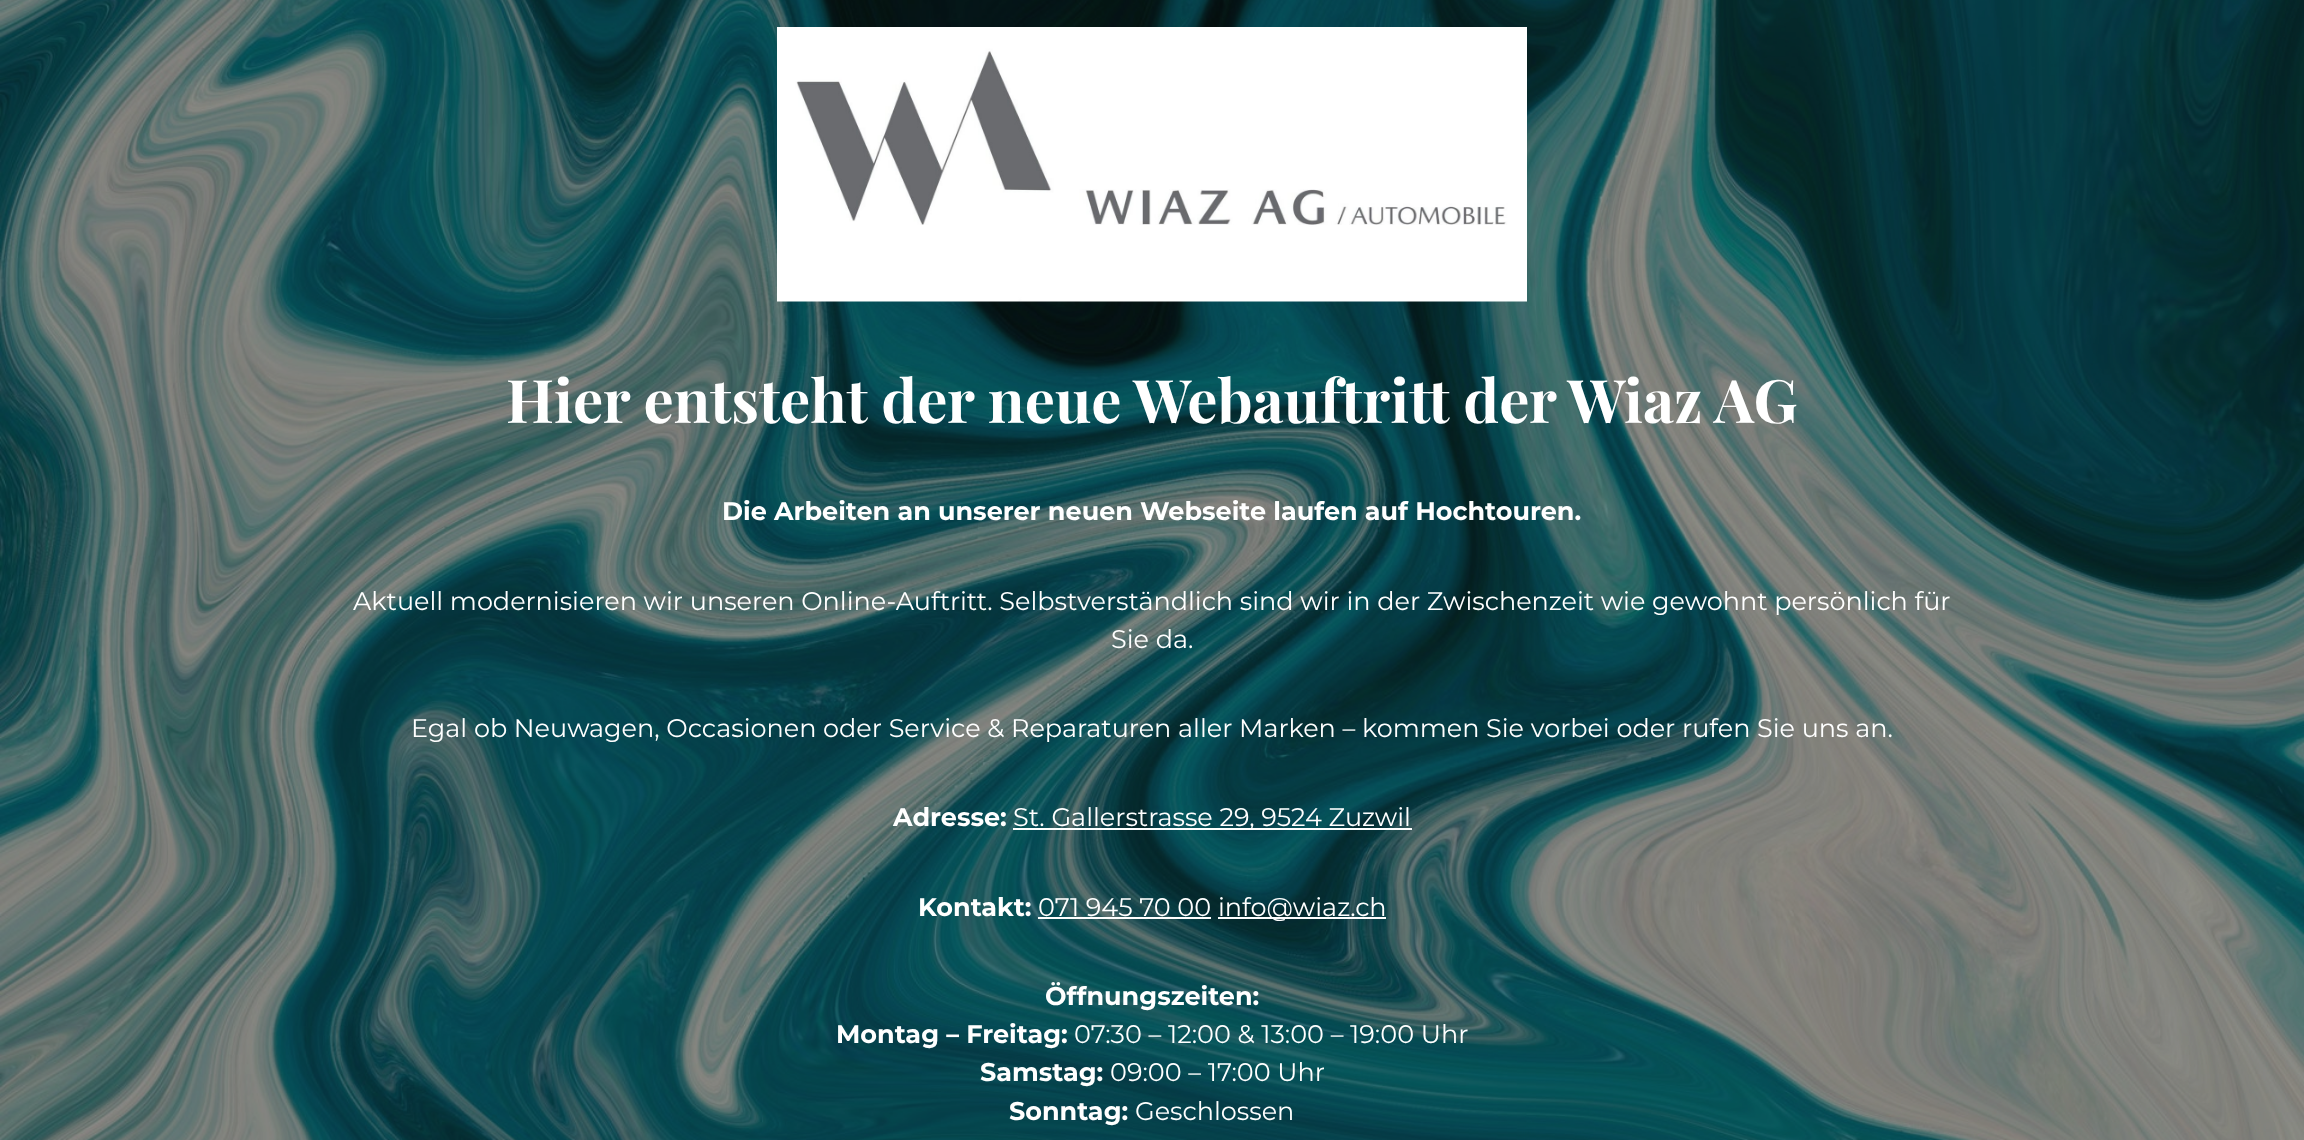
<svg xmlns="http://www.w3.org/2000/svg" width="2304" height="1140">
<rect width="100%" height="100%" fill="#fff"/>
<image x="0" y="0" width="2304" height="1140" href="media/1.png"/>
<image x="777" y="27" width="750" height="275" href="media/2.png"/>
<text x="506" y="423" style="font-family:Playfair Display;font-size:60px;font-weight:bold;fill:#fff">Hier entsteht der neue Webauftritt der Wiaz AG</text>
<text x="722" y="520" style="font-family:Montserrat;font-size:25.5px;font-weight:bold;fill:#fff">Die Arbeiten an unserer neuen Webseite laufen auf Hochtouren.</text>
<text x="353" y="610" style="font-family:Montserrat;font-size:25.5px;fill:#fff">Aktuell modernisieren wir unseren Online-Auftritt. Selbstverständlich sind wir in der Zwischenzeit wie gewohnt persönlich für</text>
<text x="1111" y="648" style="font-family:Montserrat;font-size:25.5px;fill:#fff">Sie da.</text>
<text x="411" y="737" style="font-family:Montserrat;font-size:25.5px;fill:#fff">Egal ob Neuwagen, Occasionen oder Service &amp; Reparaturen aller Marken – kommen Sie vorbei oder rufen Sie uns an.</text>
<text x="893" y="826" style="font-family:Montserrat;font-size:25.5px;font-weight:bold;fill:#fff">Adresse:</text>
<rect x="1013" y="828" width="399" height="2" fill="#fff"/>
<text x="1013" y="826" style="font-family:Montserrat;font-size:25.5px;fill:#fff">St. Gallerstrasse 29, 9524 Zuzwil</text>
<text x="918" y="916" style="font-family:Montserrat;font-size:25.5px;font-weight:bold;fill:#fff">Kontakt:</text>
<text x="1038" y="916" style="font-family:Montserrat;font-size:25.5px;fill:#fff">071 945 70 00</text>
<rect x="1038" y="917" width="173" height="2" fill="#fff"/>
<rect x="1218" y="917" width="168" height="2" fill="#fff"/>
<text x="1218" y="916" style="font-family:Montserrat;font-size:25.5px;fill:#fff">info@wiaz.ch</text>
<text x="1045" y="1005" style="font-family:Montserrat;font-size:25.5px;font-weight:bold;fill:#fff">Öffnungszeiten:</text>
<text x="836" y="1043" style="font-family:Montserrat;font-size:25.5px;font-weight:bold;fill:#fff">Montag – Freitag:</text>
<text x="1074" y="1043" style="font-family:Montserrat;font-size:25.5px;fill:#fff">07:30 – 12:00 &amp; 13:00 – 19:00 Uhr</text>
<text x="980" y="1081" style="font-family:Montserrat;font-size:25.5px;font-weight:bold;fill:#fff">Samstag:</text>
<text x="1110" y="1081" style="font-family:Montserrat;font-size:25.5px;fill:#fff">09:00 – 17:00 Uhr</text>
<text x="1009" y="1120" style="font-family:Montserrat;font-size:25.5px;font-weight:bold;fill:#fff">Sonntag:</text>
<text x="1135" y="1120" style="font-family:Montserrat;font-size:25.5px;fill:#fff">Geschlossen</text>
</svg>
